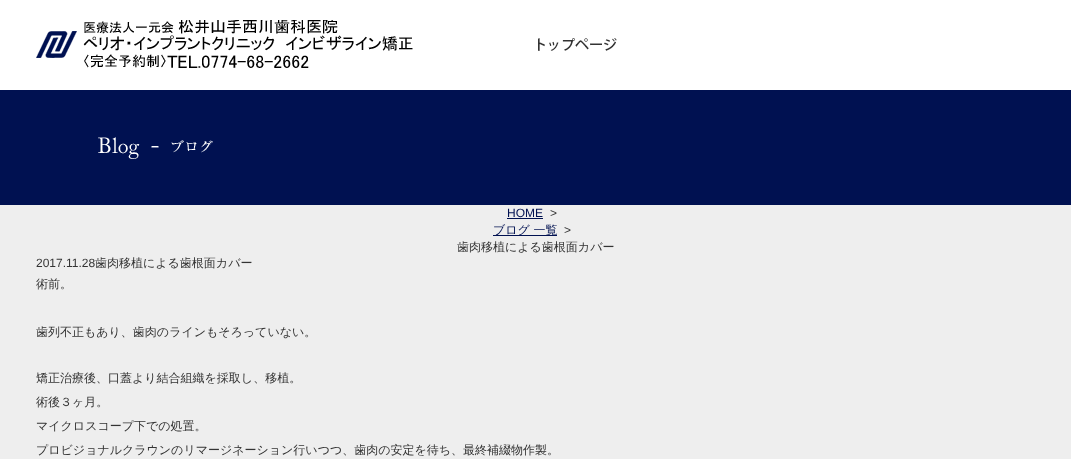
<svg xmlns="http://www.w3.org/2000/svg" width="1071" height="459">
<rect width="100%" height="100%" fill="#eee"/>
<rect width="1071" height="90" fill="#fff"/>
<image x="36" y="20" width="377" height="48" href="media/1.png"/>
<image x="538" y="38" width="79" height="13" href="media/2.png"/>
<rect y="90" width="1071" height="115" fill="#001151"/>
<image x="98" y="137" width="115" height="22" href="media/3.png"/>
<text x="507" y="217" style="font-family:Liberation Sans;font-size:12px;fill:#001151">HOME</text>
<rect x="507" y="218" width="36" height="1" fill="#001151"/>
<text x="550" y="217" style="font-family:Liberation Sans;font-size:12px;fill:#333">&gt;</text>
<rect x="493" y="235" width="64" height="1" fill="#001151"/>
<text x="493" y="234" style="font-family:WenQuanYi Zen Hei;font-size:12px;font-weight:500;fill:#001151">ブログ 一覧</text>
<text x="564" y="234" style="font-family:Liberation Sans;font-size:12px;fill:#333">&gt;</text>
<text x="457" y="251" style="font-family:WenQuanYi Zen Hei;font-size:12px;font-weight:500;fill:#333">歯肉移植による歯根面カバー</text>
<text x="36" y="267" style="font-family:Liberation Sans;font-size:12px;fill:#333">2017.11.28</text>
<text x="95" y="267" style="font-family:WenQuanYi Zen Hei;font-size:12px;font-weight:500;fill:#333">歯肉移植による歯根面カバー</text>
<text x="36" y="288" style="font-family:WenQuanYi Zen Hei;font-size:12px;font-weight:500;fill:#333">術前。</text>
<text x="36" y="336" style="font-family:WenQuanYi Zen Hei;font-size:12px;font-weight:500;fill:#333">歯列不正もあり、歯肉のラインもそろっていない。</text>
<text x="36" y="382" style="font-family:WenQuanYi Zen Hei;font-size:12px;font-weight:500;fill:#333">矯正治療後、口蓋より結合組織を採取し、移植。</text>
<text x="36" y="406" style="font-family:WenQuanYi Zen Hei;font-size:12px;font-weight:500;fill:#333">術後３ヶ月。</text>
<text x="36" y="430" style="font-family:WenQuanYi Zen Hei;font-size:12px;font-weight:500;fill:#333">マイクロスコープ下での処置。</text>
<text x="36" y="454" style="font-family:WenQuanYi Zen Hei;font-size:12px;font-weight:500;fill:#333">プロビジョナルクラウンのリマージネーション行いつつ、歯肉の安定を待ち、最終補綴物作製。</text>
</svg>
